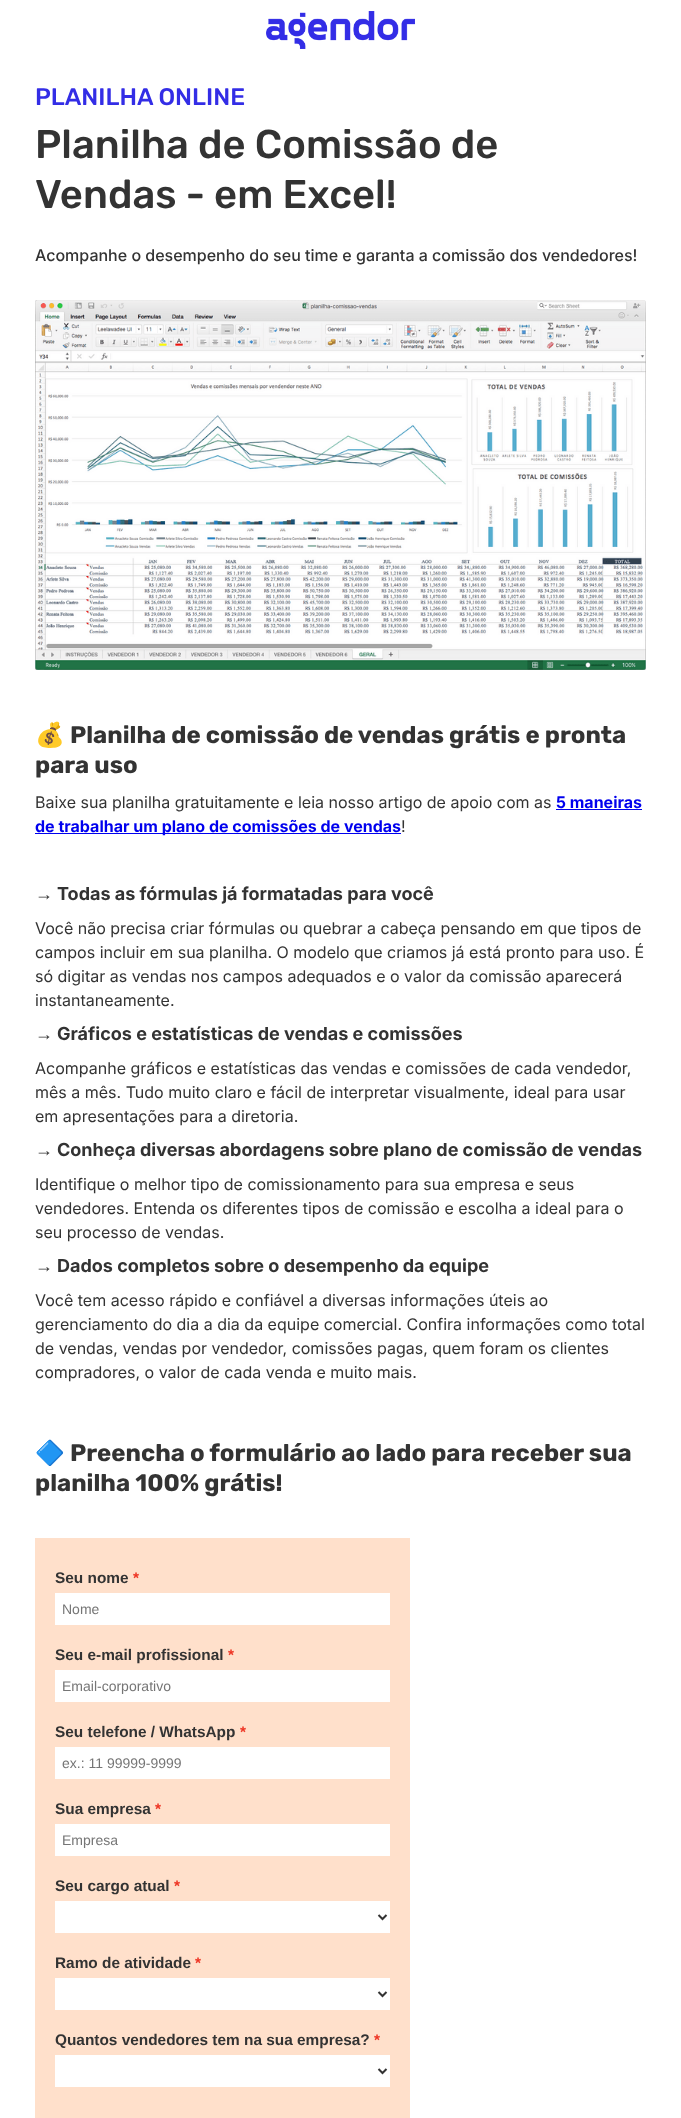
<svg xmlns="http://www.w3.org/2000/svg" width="681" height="2118">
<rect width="100%" height="100%" fill="#fff"/>
<image x="266" y="11" width="149" height="38" href="media/1.png"/>
<text x="35" y="105" style="font-family:Rubik;font-size:24px;font-weight:500;fill:#332de6">PLANILHA ONLINE</text>
<text x="35" y="158" style="font-family:Rubik;font-size:40px;font-weight:500;fill:#333">Planilha de Comissão de</text>
<text x="35" y="208" style="font-family:Rubik;font-size:40px;font-weight:500;fill:#333">Vendas - em Excel!</text>
<text x="35" y="261" style="font-family:Inter;font-size:16px;font-weight:500;fill:#333">Acompanhe o desempenho do seu time e garanta a comissão dos vendedores!</text>
<image x="35" y="300" width="611" height="370" href="media/2.png"/>
<text x="35" y="743" style="font-family:Noto Color Emoji;font-size:24px;font-weight:bold;fill:#333">💰</text>
<text x="70" y="743" style="font-family:Rubik;font-size:24px;font-weight:bold;fill:#333">Planilha de comissão de vendas grátis e pronta</text>
<text x="35" y="773" style="font-family:Rubik;font-size:24px;font-weight:bold;fill:#333">para uso</text>
<text x="35" y="808" style="font-family:Inter;font-size:16px;fill:#333">Baixe sua planilha gratuitamente e leia nosso artigo de apoio com as</text>
<text x="556" y="808" style="font-family:Inter;font-size:16px;font-weight:bold;fill:#00e">5 maneiras</text>
<rect x="556" y="809" width="86" height="1" fill="#00e"/>
<rect x="35" y="833" width="366" height="1" fill="#00e"/>
<text x="35" y="832" style="font-family:Inter;font-size:16px;font-weight:bold;fill:#00e">de trabalhar um plano de comissões de vendas</text>
<text x="401" y="832" style="font-family:Inter;font-size:16px;fill:#333">!</text>
<text x="35" y="900" style="font-family:Liberation Sans;font-size:18px;font-weight:bold;fill:#333">→</text>
<text x="57" y="900" style="font-family:Inter;font-size:18px;font-weight:bold;fill:#333">Todas as fórmulas já formatadas para você</text>
<text x="35" y="934" style="font-family:Inter;font-size:16px;fill:#333">Você não precisa criar fórmulas ou quebrar a cabeça pensando em que tipos de</text>
<text x="35" y="958" style="font-family:Inter;font-size:16px;fill:#333">campos incluir em sua planilha. O modelo que criamos já está pronto para uso. É</text>
<text x="35" y="982" style="font-family:Inter;font-size:16px;fill:#333">só digitar as vendas nos campos adequados e o valor da comissão aparecerá</text>
<text x="35" y="1006" style="font-family:Inter;font-size:16px;fill:#333">instantaneamente.</text>
<text x="35" y="1040" style="font-family:Liberation Sans;font-size:18px;font-weight:bold;fill:#333">→</text>
<text x="57" y="1040" style="font-family:Inter;font-size:18px;font-weight:bold;fill:#333">Gráficos e estatísticas de vendas e comissões</text>
<text x="35" y="1074" style="font-family:Inter;font-size:16px;fill:#333">Acompanhe gráficos e estatísticas das vendas e comissões de cada vendedor,</text>
<text x="35" y="1098" style="font-family:Inter;font-size:16px;fill:#333">mês a mês. Tudo muito claro e fácil de interpretar visualmente, ideal para usar</text>
<text x="35" y="1122" style="font-family:Inter;font-size:16px;fill:#333">em apresentações para a diretoria.</text>
<text x="35" y="1156" style="font-family:Liberation Sans;font-size:18px;font-weight:bold;fill:#333">→</text>
<text x="57" y="1156" style="font-family:Inter;font-size:18px;font-weight:bold;fill:#333">Conheça diversas abordagens sobre plano de comissão de vendas</text>
<text x="35" y="1190" style="font-family:Inter;font-size:16px;fill:#333">Identifique o melhor tipo de comissionamento para sua empresa e seus</text>
<text x="35" y="1214" style="font-family:Inter;font-size:16px;fill:#333">vendedores. Entenda os diferentes tipos de comissão e escolha a ideal para o</text>
<text x="35" y="1238" style="font-family:Inter;font-size:16px;fill:#333">seu processo de vendas.</text>
<text x="35" y="1272" style="font-family:Liberation Sans;font-size:18px;font-weight:bold;fill:#333">→</text>
<text x="57" y="1272" style="font-family:Inter;font-size:18px;font-weight:bold;fill:#333">Dados completos sobre o desempenho da equipe</text>
<text x="35" y="1306" style="font-family:Inter;font-size:16px;fill:#333">Você tem acesso rápido e confiável a diversas informações úteis ao</text>
<text x="35" y="1330" style="font-family:Inter;font-size:16px;fill:#333">gerenciamento do dia a dia da equipe comercial. Confira informações como total</text>
<text x="35" y="1354" style="font-family:Inter;font-size:16px;fill:#333">de vendas, vendas por vendedor, comissões pagas, quem foram os clientes</text>
<text x="35" y="1378" style="font-family:Inter;font-size:16px;fill:#333">compradores, o valor de cada venda e muito mais.</text>
<text x="35" y="1461" style="font-family:Noto Color Emoji;font-size:24px;font-weight:bold;fill:#333">🔷</text>
<text x="70" y="1461" style="font-family:Rubik;font-size:24px;font-weight:bold;fill:#333">Preencha o formulário ao lado para receber sua</text>
<text x="35" y="1491" style="font-family:Rubik;font-size:24px;font-weight:bold;fill:#333">planilha 100% grátis!</text>
<rect x="35" y="1538" width="375" height="580" fill="#ffe0cb"/>
<text x="55" y="1583" style="font-family:Liberation Sans;font-size:15.4px;font-weight:bold;fill:#333">Seu nome</text>
<text x="133" y="1583" style="font-family:Liberation Sans;font-size:15.4px;font-weight:bold;fill:#e32">*</text>
<rect x="55" y="1593" width="335" height="32" fill="#fff"/>
<text x="62" y="1614" style="font-family:Liberation Sans;font-size:14px;fill:#757575">Nome</text>
<text x="55" y="1660" style="font-family:Liberation Sans;font-size:15.4px;font-weight:bold;fill:#333">Seu e-mail profissional</text>
<text x="228" y="1660" style="font-family:Liberation Sans;font-size:15.4px;font-weight:bold;fill:#e32">*</text>
<rect x="55" y="1670" width="335" height="32" fill="#fff"/>
<text x="62" y="1691" style="font-family:Liberation Sans;font-size:14px;fill:#757575">Email-corporativo</text>
<text x="55" y="1737" style="font-family:Liberation Sans;font-size:15.4px;font-weight:bold;fill:#333">Seu telefone / WhatsApp</text>
<text x="240" y="1737" style="font-family:Liberation Sans;font-size:15.4px;font-weight:bold;fill:#e32">*</text>
<rect x="55" y="1747" width="335" height="32" fill="#fff"/>
<text x="62" y="1768" style="font-family:Liberation Sans;font-size:14px;fill:#757575">ex.: 11 99999-9999</text>
<text x="55" y="1814" style="font-family:Liberation Sans;font-size:15.4px;font-weight:bold;fill:#333">Sua empresa</text>
<text x="155" y="1814" style="font-family:Liberation Sans;font-size:15.4px;font-weight:bold;fill:#e32">*</text>
<rect x="55" y="1824" width="335" height="32" fill="#fff"/>
<text x="62" y="1845" style="font-family:Liberation Sans;font-size:14px;fill:#757575">Empresa</text>
<text x="55" y="1891" style="font-family:Liberation Sans;font-size:15.4px;font-weight:bold;fill:#333">Seu cargo atual</text>
<text x="174" y="1891" style="font-family:Liberation Sans;font-size:15.4px;font-weight:bold;fill:#e32">*</text>
<rect x="55" y="1901" width="335" height="32" fill="#fff"/>
<path d="M378.5 1915l4 4l4-4" fill="none" stroke="#333" stroke-width="2"/>
<text x="55" y="1968" style="font-family:Liberation Sans;font-size:15.4px;font-weight:bold;fill:#333">Ramo de atividade</text>
<text x="195" y="1968" style="font-family:Liberation Sans;font-size:15.4px;font-weight:bold;fill:#e32">*</text>
<rect x="55" y="1978" width="335" height="32" fill="#fff"/>
<path d="M378.5 1992l4 4l4-4" fill="none" stroke="#333" stroke-width="2"/>
<text x="55" y="2045" style="font-family:Liberation Sans;font-size:15.4px;font-weight:bold;fill:#333">Quantos vendedores tem na sua empresa?</text>
<text x="374" y="2045" style="font-family:Liberation Sans;font-size:15.4px;font-weight:bold;fill:#e32">*</text>
<rect x="55" y="2055" width="335" height="32" fill="#fff"/>
<path d="M378.5 2069l4 4l4-4" fill="none" stroke="#333" stroke-width="2"/>
</svg>
